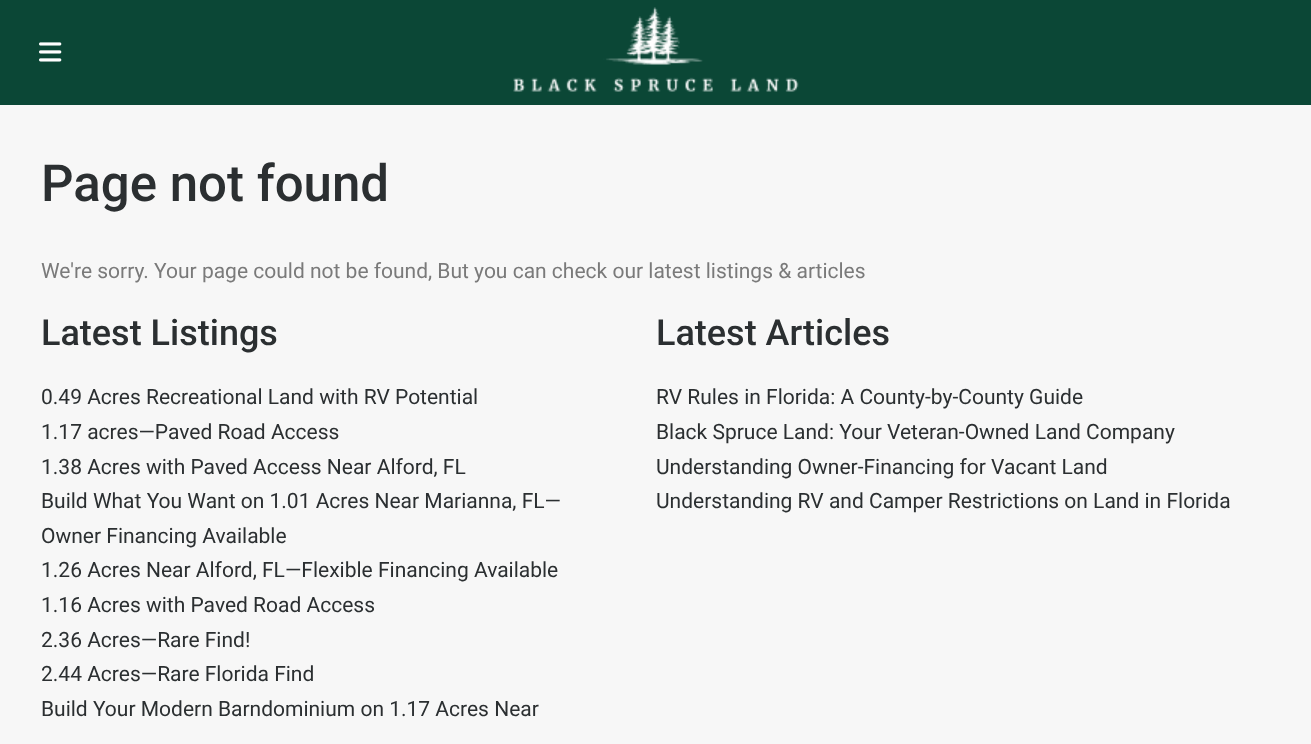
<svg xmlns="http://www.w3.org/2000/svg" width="1311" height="744">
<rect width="100%" height="100%" fill="#f7f7f7"/>
<rect width="1311" height="105" fill="#0b4736"/>
<image x="39" y="42" width="23" height="20" href="media/1.png"/>
<image x="513" y="7" width="286" height="85" href="media/2.png"/>
<text x="41" y="201" style="font-family:Roboto;font-size:51px;font-weight:500;fill:#2b2f31">Page not found</text>
<text x="41" y="278" style="font-family:Roboto;font-size:21px;fill:#7a7a7a">We're sorry. Your page could not be found, But you can check our latest listings &amp; articles</text>
<text x="41" y="345" style="font-family:Roboto;font-size:36px;font-weight:500;fill:#2b2f31">Latest Listings</text>
<text x="41" y="404" style="font-family:Roboto;font-size:21px;fill:#2b2f31">0.49 Acres Recreational Land with RV Potential</text>
<text x="41" y="439" style="font-family:Roboto;font-size:21px;fill:#2b2f31">1.17 acres—Paved Road Access</text>
<text x="41" y="474" style="font-family:Roboto;font-size:21px;fill:#2b2f31">1.38 Acres with Paved Access Near Alford, FL</text>
<text x="41" y="508" style="font-family:Roboto;font-size:21px;fill:#2b2f31">Build What You Want on 1.01 Acres Near Marianna, FL—</text>
<text x="41" y="543" style="font-family:Roboto;font-size:21px;fill:#2b2f31">Owner Financing Available</text>
<text x="41" y="577" style="font-family:Roboto;font-size:21px;fill:#2b2f31">1.26 Acres Near Alford, FL—Flexible Financing Available</text>
<text x="41" y="612" style="font-family:Roboto;font-size:21px;fill:#2b2f31">1.16 Acres with Paved Road Access</text>
<text x="41" y="647" style="font-family:Roboto;font-size:21px;fill:#2b2f31">2.36 Acres—Rare Find!</text>
<text x="41" y="681" style="font-family:Roboto;font-size:21px;fill:#2b2f31">2.44 Acres—Rare Florida Find</text>
<text x="41" y="716" style="font-family:Roboto;font-size:21px;fill:#2b2f31">Build Your Modern Barndominium on 1.17 Acres Near</text>
<text x="656" y="345" style="font-family:Roboto;font-size:36px;font-weight:500;fill:#2b2f31">Latest Articles</text>
<text x="656" y="404" style="font-family:Roboto;font-size:21px;fill:#2b2f31">RV Rules in Florida: A County-by-County Guide</text>
<text x="656" y="439" style="font-family:Roboto;font-size:21px;fill:#2b2f31">Black Spruce Land: Your Veteran-Owned Land Company</text>
<text x="656" y="474" style="font-family:Roboto;font-size:21px;fill:#2b2f31">Understanding Owner-Financing for Vacant Land</text>
<text x="656" y="508" style="font-family:Roboto;font-size:21px;fill:#2b2f31">Understanding RV and Camper Restrictions on Land in Florida</text>
</svg>
